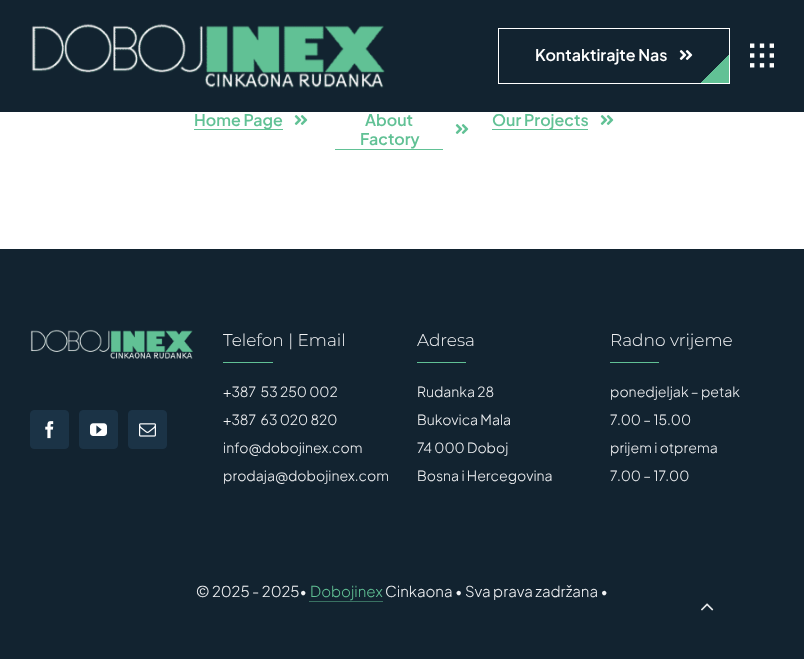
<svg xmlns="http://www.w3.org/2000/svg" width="804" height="659">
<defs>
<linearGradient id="g1" gradientUnits="userSpaceOnUse" x1="543" y1="-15" x2="685" y2="127"><stop offset="0.9" stop-color="#122330"/><stop offset="0.9" stop-color="#61c195"/></linearGradient>
</defs>
<rect width="100%" height="100%" fill="#fff"/>
<rect width="804" height="112" fill="#122330"/>
<image x="31" y="23" width="354" height="65" href="media/1.png"/>
<rect x="701" y="55" width="28" height="28" fill="url(#g1)"/>
<rect x="498.5" y="28.5" width="231" height="55" fill="none" stroke="#fff"/>
<text x="535" y="61" style="font-family:Plus Jakarta Sans;font-size:16px;font-weight:600;fill:#fff">Kontaktirajte Nas</text>
<image x="679" y="50" width="14" height="10" href="media/2.png"/>
<image x="750" y="43" width="24" height="25" href="media/3.png"/>
<text x="194" y="126" style="font-family:Plus Jakarta Sans;font-size:16px;font-weight:600;fill:#61c195">Home Page</text>
<rect x="194" y="129" width="89" height="1" fill="#61c195"/>
<image x="294" y="115" width="14" height="10" href="media/4.png"/>
<text x="365" y="126" style="font-family:Plus Jakarta Sans;font-size:16px;font-weight:600;fill:#61c195">About</text>
<text x="360" y="145" style="font-family:Plus Jakarta Sans;font-size:16px;font-weight:600;fill:#61c195">Factory</text>
<rect x="335" y="149" width="108" height="1" fill="#61c195"/>
<image x="455" y="124" width="14" height="10" href="media/4.png"/>
<text x="492" y="126" style="font-family:Plus Jakarta Sans;font-size:16px;font-weight:600;fill:#61c195">Our Projects</text>
<rect x="492" y="129" width="96" height="1" fill="#61c195"/>
<image x="600" y="115" width="14" height="10" href="media/4.png"/>
<rect y="249" width="804" height="410" fill="#122330"/>
<image x="30" y="329" width="163" height="30" href="media/5.png"/>
<rect x="30.5" y="410.5" width="38" height="38" rx="3.5" fill="#1b3346" stroke="#1b3346"/>
<image x="45" y="421" width="9" height="18" href="media/6.png"/>
<rect x="79.5" y="410.5" width="38" height="38" rx="3.5" fill="#1b3346" stroke="#1b3346"/>
<image x="90" y="423" width="17" height="13" href="media/7.png"/>
<rect x="128.5" y="410.5" width="38" height="38" rx="3.5" fill="#1b3346" stroke="#1b3346"/>
<image x="139" y="423" width="17" height="14" href="media/8.png"/>
<text x="223" y="346" style="font-family:Montserrat;font-size:17px;font-weight:100;fill:#f2f3f5">Telefon | Email</text>
<rect x="223" y="362" width="50" height="1" fill="#61c195"/>
<text x="223" y="397" style="font-family:Plus Jakarta Sans;font-size:14px;font-weight:300;fill:#f2f3f5" xml:space="preserve">+387  53 250 002</text>
<text x="223" y="425" style="font-family:Plus Jakarta Sans;font-size:14px;font-weight:300;fill:#f2f3f5" xml:space="preserve">+387  63 020 820</text>
<text x="223" y="453" style="font-family:Plus Jakarta Sans;font-size:14px;font-weight:300;fill:#f2f3f5">info@dobojinex.com</text>
<text x="223" y="481" style="font-family:Plus Jakarta Sans;font-size:14px;font-weight:300;fill:#f2f3f5">prodaja@dobojinex.com</text>
<text x="417" y="346" style="font-family:Montserrat;font-size:17px;font-weight:100;fill:#f2f3f5">Adresa</text>
<rect x="417" y="362" width="49" height="1" fill="#61c195"/>
<text x="417" y="397" style="font-family:Plus Jakarta Sans;font-size:14px;font-weight:300;fill:#f2f3f5">Rudanka 28</text>
<text x="417" y="425" style="font-family:Plus Jakarta Sans;font-size:14px;font-weight:300;fill:#f2f3f5">Bukovica Mala</text>
<text x="417" y="453" style="font-family:Plus Jakarta Sans;font-size:14px;font-weight:300;fill:#f2f3f5">74 000 Doboj</text>
<text x="417" y="481" style="font-family:Plus Jakarta Sans;font-size:14px;font-weight:300;fill:#f2f3f5">Bosna i Hercegovina</text>
<text x="610" y="346" style="font-family:Montserrat;font-size:17px;font-weight:100;fill:#f2f3f5">Radno vrijeme</text>
<rect x="610" y="362" width="49" height="1" fill="#61c195"/>
<text x="610" y="397" style="font-family:Plus Jakarta Sans;font-size:14px;font-weight:300;fill:#f2f3f5">ponedjeljak – petak</text>
<text x="610" y="425" style="font-family:Plus Jakarta Sans;font-size:14px;font-weight:300;fill:#f2f3f5">7.00 – 15.00</text>
<text x="610" y="453" style="font-family:Plus Jakarta Sans;font-size:14px;font-weight:300;fill:#f2f3f5">prijem i otprema</text>
<text x="610" y="481" style="font-family:Plus Jakarta Sans;font-size:14px;font-weight:300;fill:#f2f3f5">7.00 – 17.00</text>
<text x="196" y="597" style="font-family:Plus Jakarta Sans;font-size:15px;font-weight:300;fill:#f2f3f5">© 2025 - 2025•</text>
<text x="310" y="597" style="font-family:Plus Jakarta Sans;font-size:15px;font-weight:300;fill:#61c195">Dobojinex</text>
<path d="M309.5 601.5h73" fill="none" stroke="#61c195" stroke-dasharray="1 1"/>
<text x="385" y="597" style="font-family:Plus Jakarta Sans;font-size:15px;font-weight:300;fill:#f2f3f5">Cinkaona • Sva prava zadržana •</text>
<image x="701" y="603" width="13" height="8" href="media/9.png"/>
</svg>
